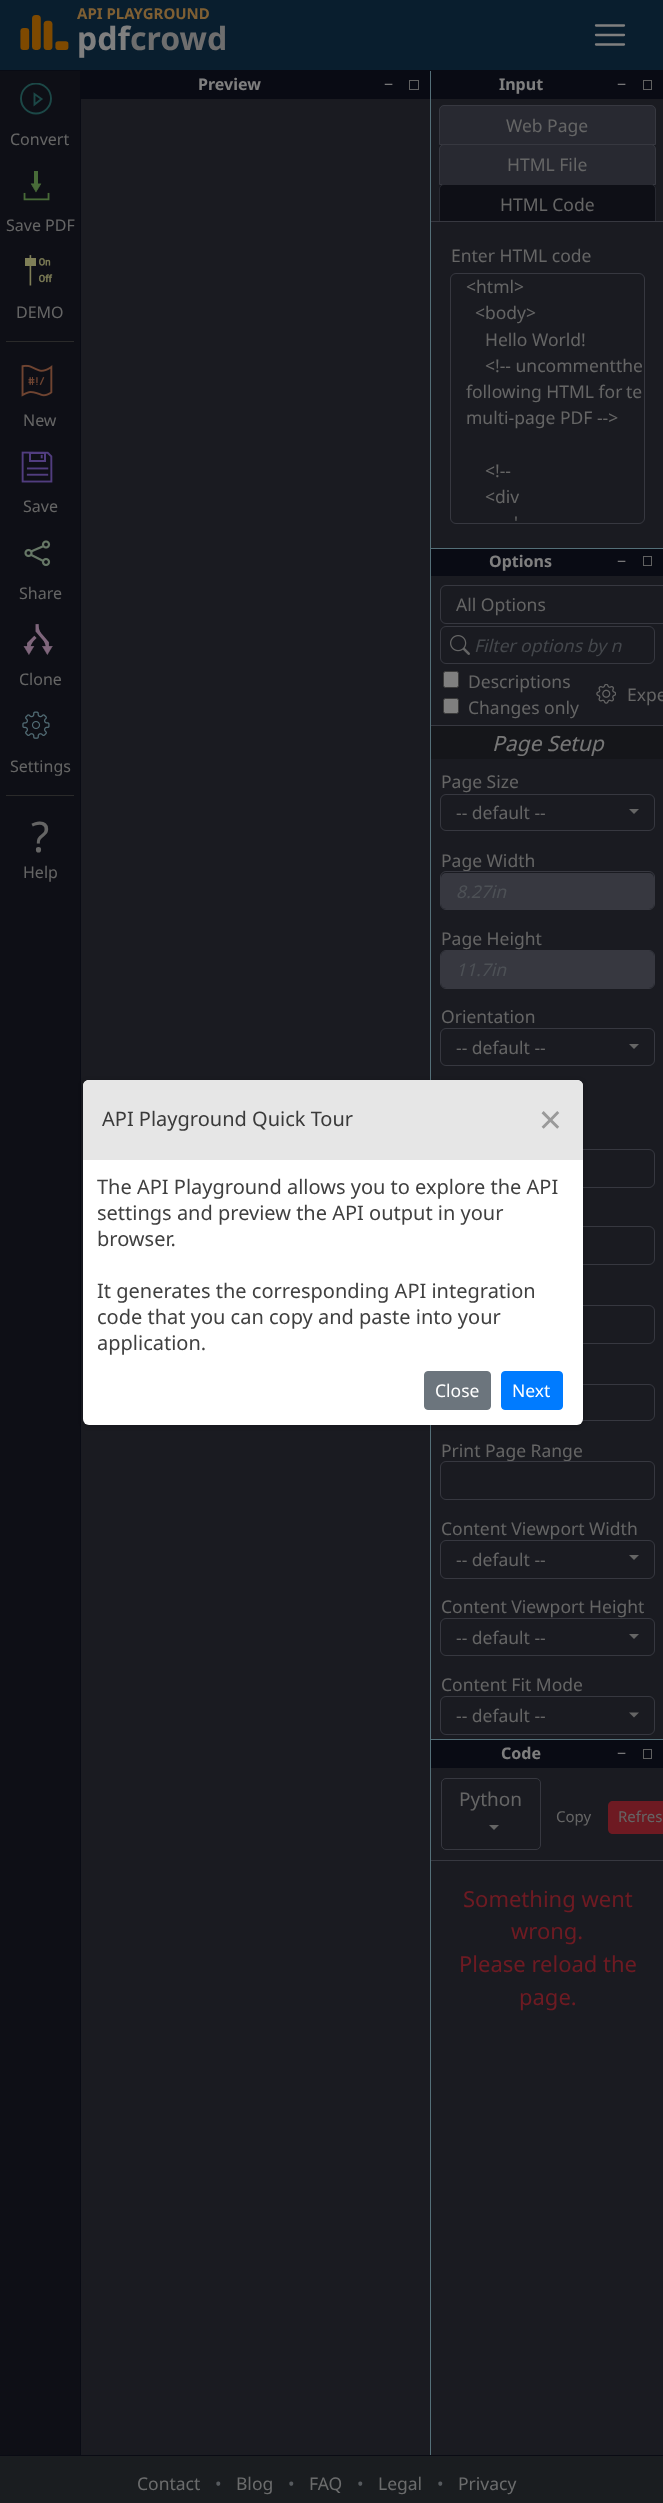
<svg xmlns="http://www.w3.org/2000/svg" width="663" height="2503">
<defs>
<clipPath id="clip1"><rect x="20" y="83" width="40" height="39"/></clipPath>
</defs>
<rect width="100%" height="100%" fill="#131629"/>
<rect width="663" height="70" fill="#133d5d"/>
<image x="20" y="15" width="49" height="35" href="media/1.png"/>
<text x="77" y="19" style="font-family:Noto Sans;font-size:15px;font-weight:bold;fill:#febf67">API PLAYGROUND</text>
<text x="77" y="50" style="font-family:Noto Sans;font-size:32px;font-weight:bold;fill:#fff">pdf</text>
<text x="130" y="50" style="font-family:Noto Sans;font-size:32px;font-weight:bold;fill:#ddd">crowd</text>
<path d="M596 25.5h28m-28 9.5h28m-28 9.5h28" fill="none" stroke="#fff" stroke-width="2.3" stroke-linecap="round"/>
<rect y="71" width="80" height="2384" fill="#1d1f2c"/>
<path d="M34.5 94v10.5l7-5.5z" fill="none" stroke="#38908f" stroke-width="1.9"/>
<g clip-path="url(#clip1)">
<circle cx="36" cy="98.5" r="15" fill="none" stroke="#38908f" stroke-width="1.9"/>
</g>
<text x="10" y="145" style="font-family:Noto Sans;font-size:16px;fill:#cacaca">Convert</text>
<image x="23" y="171" width="27" height="30" href="media/2.png"/>
<text x="6" y="231" style="font-family:Noto Sans;font-size:16px;fill:#cacaca">Save PDF</text>
<image x="25" y="255" width="28" height="31" href="media/3.png"/>
<text x="16" y="318" style="font-family:Noto Sans;font-size:16px;fill:#cacaca">DEMO</text>
<rect x="6" y="341" width="68" height="1" fill="#555"/>
<image x="21" y="364" width="32" height="33" href="media/4.png"/>
<text x="23" y="426" style="font-family:Noto Sans;font-size:16px;fill:#cacaca">New</text>
<image x="21" y="451" width="32" height="32" href="media/5.png"/>
<text x="23" y="512" style="font-family:Noto Sans;font-size:16px;fill:#cacaca">Save</text>
<image x="24" y="540" width="27" height="27" href="media/6.png"/>
<text x="19" y="599" style="font-family:Noto Sans;font-size:16px;fill:#cacaca">Share</text>
<image x="23" y="624" width="30" height="31" href="media/7.png"/>
<text x="19" y="685" style="font-family:Noto Sans;font-size:16px;fill:#cacaca">Clone</text>
<image x="22" y="711" width="28" height="28" href="media/8.png"/>
<text x="10" y="772" style="font-family:Noto Sans;font-size:16px;fill:#cacaca">Settings</text>
<rect x="6" y="795" width="68" height="1" fill="#555"/>
<text x="31" y="852" style="font-family:Noto Sans;font-size:42px;fill:#cacaca">?</text>
<text x="23" y="878" style="font-family:Noto Sans;font-size:16px;fill:#cacaca">Help</text>
<rect x="81" y="99" width="582" height="2356" fill="#343642"/>
<text x="198" y="90" style="font-family:Noto Sans;font-size:16px;font-weight:bold;fill:#fff">Preview</text>
<text x="384" y="90" style="font-family:Noto Sans;font-size:16px;fill:#fff">−</text>
<rect x="409.5" y="80.5" width="9" height="9" fill="none" stroke="#c2c2c2"/>
<rect x="430" y="71" width="1" height="2384" fill="#a8def0"/>
<text x="499" y="90" style="font-family:Noto Sans;font-size:16px;font-weight:bold;fill:#fff">Input</text>
<text x="617" y="90" style="font-family:Noto Sans;font-size:16px;fill:#fff">−</text>
<rect x="643.5" y="80.5" width="8" height="9" fill="none" stroke="#c2c2c2"/>
<path d="M444 105.5h207c2.5 0 4.5 2 4.5 4.5v34.5h-216v-34.5c0-2.5 2-4.5 4.5-4.5z" fill="#505363" stroke="#6e7181"/>
<text x="506" y="132" style="font-family:Noto Sans;font-size:17.5px;fill:#cacaca">Web Page</text>
<path d="M444 144.5h207c2.5 0 4.5 2 4.5 4.5v35.5h-216v-35.5c0-2.5 2-4.5 4.5-4.5z" fill="#505363" stroke="#6e7181"/>
<text x="507" y="171" style="font-family:Noto Sans;font-size:17.5px;fill:#cacaca">HTML File</text>
<path d="M444 184.5h207c2.5 0 4.5 2 4.5 4.5v35.5h-216v-35.5c0-2.5 2-4.5 4.5-4.5z" fill="#1d1f2c" stroke="#505363"/>
<text x="500" y="211" style="font-family:Noto Sans;font-size:17.5px;fill:#cacaca">HTML Code</text>
<rect x="439" y="222" width="217" height="3" fill="#343642"/>
<rect x="431" y="221" width="232" height="1" fill="#6e7181"/>
<text x="451" y="262" style="font-family:Noto Sans;font-size:17.5px;fill:#cacaca">Enter HTML code</text>
<rect x="450.5" y="273.5" width="194" height="250" rx="5.5" fill="none" stroke="#6e7181"/>
<text x="466" y="293" style="font-family:Noto Sans;font-size:17.5px;fill:#cacaca">&lt;html&gt;</text>
<text x="475" y="319" style="font-family:Noto Sans;font-size:17.5px;fill:#cacaca">&lt;body&gt;</text>
<text x="485" y="346" style="font-family:Noto Sans;font-size:17.5px;fill:#cacaca">Hello World!</text>
<text x="485" y="372" style="font-family:Noto Sans;font-size:17.5px;fill:#cacaca">&lt;!-- uncommentthe</text>
<text x="466" y="398" style="font-family:Noto Sans;font-size:17.5px;fill:#cacaca">following HTML for</text>
<text x="626" y="398" style="font-family:Noto Sans;font-size:17.5px;fill:#cacaca">te</text>
<text x="466" y="424" style="font-family:Noto Sans;font-size:17.5px;fill:#cacaca">multi-page PDF --&gt;</text>
<text x="485" y="477" style="font-family:Noto Sans;font-size:17.5px;fill:#cacaca">&lt;!--</text>
<text x="485" y="503" style="font-family:Noto Sans;font-size:17.5px;fill:#cacaca">&lt;div</text>
<text x="514" y="529" style="font-family:Noto Sans;font-size:17.5px;fill:#cacaca">'</text>
<rect x="431" y="548" width="232" height="1" fill="#a8def0"/>
<rect x="431" y="549" width="232" height="27" fill="#131629"/>
<text x="489" y="567" style="font-family:Noto Sans;font-size:16px;font-weight:bold;fill:#fff">Options</text>
<text x="617" y="567" style="font-family:Noto Sans;font-size:16px;fill:#fff">−</text>
<rect x="643.5" y="556.5" width="8" height="9" fill="none" stroke="#c2c2c2"/>
<rect x="431" y="725" width="232" height="1" fill="#6e7181"/>
<rect x="440.5" y="585.5" width="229" height="38" rx="5.5" fill="none" stroke="#6e7181"/>
<text x="456" y="611" style="font-family:Noto Sans;font-size:17.5px;fill:#cacaca">All Options</text>
<rect x="440.5" y="626.5" width="214" height="37" rx="5.5" fill="none" stroke="#6e7181"/>
<image x="450" y="635" width="20" height="20" href="media/9.png"/>
<text x="474" y="652" style="font-family:Noto Sans;font-size:17.5px;font-style:italic;fill:#898f98">Filter options by n</text>
<rect x="443.5" y="671.5" width="15" height="16" rx="2" fill="#fff" stroke="#767676"/>
<text x="468" y="688" style="font-family:Noto Sans;font-size:17.5px;fill:#cacaca">Descriptions</text>
<rect x="443.5" y="698.5" width="15" height="15" rx="2" fill="#fff" stroke="#767676"/>
<text x="468" y="714" style="font-family:Noto Sans;font-size:17.5px;fill:#cacaca">Changes only</text>
<image x="596" y="684" width="20" height="20" href="media/10.png"/>
<text x="627" y="701" style="font-family:Noto Sans;font-size:17.5px;fill:#cacaca">Expe</text>
<rect x="431" y="726" width="232" height="33" fill="#2b2d35"/>
<text x="492" y="751" style="font-family:Noto Sans;font-size:21px;font-style:italic;fill:#eee">Page Setup</text>
<text x="441" y="788" style="font-family:Noto Sans;font-size:17.5px;fill:#cacaca">Page Size</text>
<rect x="440.5" y="794.5" width="214" height="36" rx="5.5" fill="none" stroke="#6e7181"/>
<text x="456" y="819" style="font-family:Noto Sans;font-size:17.5px;fill:#cacaca">-- default --</text>
<path d="M629 809h10l-5 5z" fill="#cacaca"/>
<text x="441" y="867" style="font-family:Noto Sans;font-size:17.5px;fill:#cacaca">Page Width</text>
<rect x="441" y="873" width="213" height="36" rx="5" fill="#6e7181"/>
<rect x="440.5" y="871.5" width="214" height="38" rx="5.5" fill="none" stroke="#6e7181"/>
<text x="456" y="898" style="font-family:Noto Sans;font-size:17.5px;font-style:italic;fill:#9aa1ab">8.27in</text>
<text x="441" y="945" style="font-family:Noto Sans;font-size:17.5px;fill:#cacaca">Page Height</text>
<rect x="441" y="951" width="213" height="37" rx="5" fill="#6e7181"/>
<rect x="440.5" y="950.5" width="214" height="38" rx="5.5" fill="none" stroke="#6e7181"/>
<text x="456" y="976" style="font-family:Noto Sans;font-size:17.5px;font-style:italic;fill:#9aa1ab">11.7in</text>
<text x="441" y="1023" style="font-family:Noto Sans;font-size:17.5px;fill:#cacaca">Orientation</text>
<rect x="440.5" y="1028.5" width="214" height="37" rx="5.5" fill="none" stroke="#6e7181"/>
<text x="456" y="1054" style="font-family:Noto Sans;font-size:17.5px;fill:#cacaca">-- default --</text>
<path d="M629 1044h10l-5 5z" fill="#cacaca"/>
<rect x="440.5" y="1149.5" width="214" height="38" rx="5.5" fill="none" stroke="#6e7181"/>
<rect x="440.5" y="1226.5" width="214" height="38" rx="5.5" fill="none" stroke="#6e7181"/>
<rect x="440.5" y="1305.5" width="214" height="38" rx="5.5" fill="none" stroke="#6e7181"/>
<rect x="440.5" y="1384.5" width="214" height="36" rx="5.5" fill="none" stroke="#6e7181"/>
<text x="441" y="1457" style="font-family:Noto Sans;font-size:17.5px;fill:#cacaca">Print Page Range</text>
<rect x="440.5" y="1461.5" width="214" height="38" rx="5.5" fill="none" stroke="#6e7181"/>
<text x="441" y="1535" style="font-family:Noto Sans;font-size:17.5px;fill:#cacaca">Content Viewport Width</text>
<rect x="440.5" y="1540.5" width="214" height="38" rx="5.5" fill="none" stroke="#6e7181"/>
<text x="456" y="1566" style="font-family:Noto Sans;font-size:17.5px;fill:#cacaca">-- default --</text>
<path d="M629 1555h10l-5 5z" fill="#cacaca"/>
<text x="441" y="1613" style="font-family:Noto Sans;font-size:17.5px;fill:#cacaca">Content Viewport Height</text>
<rect x="440.5" y="1618.5" width="214" height="37" rx="5.5" fill="none" stroke="#6e7181"/>
<text x="456" y="1644" style="font-family:Noto Sans;font-size:17.5px;fill:#cacaca">-- default --</text>
<path d="M629 1634h10l-5 5z" fill="#cacaca"/>
<text x="441" y="1691" style="font-family:Noto Sans;font-size:17.5px;fill:#cacaca">Content Fit Mode</text>
<rect x="440.5" y="1696.5" width="214" height="38" rx="5.5" fill="none" stroke="#6e7181"/>
<text x="456" y="1722" style="font-family:Noto Sans;font-size:17.5px;fill:#cacaca">-- default --</text>
<path d="M629 1712.5h10l-5 5z" fill="#cacaca"/>
<rect x="431" y="1739" width="232" height="1" fill="#a8def0"/>
<rect x="431" y="1740" width="232" height="28" fill="#131629"/>
<text x="501" y="1759" style="font-family:Noto Sans;font-size:16px;font-weight:bold;fill:#fff">Code</text>
<text x="617" y="1759" style="font-family:Noto Sans;font-size:16px;fill:#fff">−</text>
<rect x="643.5" y="1749.5" width="8" height="9" fill="none" stroke="#c2c2c2"/>
<rect x="431" y="1860" width="232" height="1" fill="#6e7181"/>
<rect x="441.5" y="1778.5" width="99" height="71" rx="4.5" fill="none" stroke="#6e7181"/>
<text x="459" y="1806" style="font-family:Noto Sans;font-size:19px;fill:#cacaca">Python</text>
<path d="M489 1825h10l-5 5z" fill="#cacaca"/>
<text x="556" y="1822" style="font-family:Noto Sans;font-size:15px;fill:#cacaca">Copy</text>
<path d="M613 1801h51v33h-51c-3 0-5-2-5-5v-23c0-3 2-5 5-5z" fill="#dc3545"/>
<text x="618" y="1822" style="font-family:Noto Sans;font-size:15px;fill:#cacaca">Refres</text>
<text x="463" y="1907" style="font-family:Noto Sans;font-size:22px;fill:#dc3545">Something went</text>
<text x="511" y="1939" style="font-family:Noto Sans;font-size:22px;fill:#dc3545">wrong.</text>
<text x="459" y="1972" style="font-family:Noto Sans;font-size:22px;fill:#dc3545">Please reload the</text>
<text x="519" y="2005" style="font-family:Noto Sans;font-size:22px;fill:#dc3545">page.</text>
<rect y="2456" width="663" height="47" fill="#343a40"/>
<text x="137" y="2490" style="font-family:Noto Sans;font-size:17.5px;fill:#d6d8d9">Contact</text>
<text x="215" y="2490" style="font-family:Noto Sans;font-size:17.5px;fill:#adb5bd">•</text>
<text x="236" y="2490" style="font-family:Noto Sans;font-size:17.5px;fill:#d6d8d9">Blog</text>
<text x="288" y="2490" style="font-family:Noto Sans;font-size:17.5px;fill:#adb5bd">•</text>
<text x="309" y="2490" style="font-family:Noto Sans;font-size:17.5px;fill:#d6d8d9">FAQ</text>
<text x="357" y="2490" style="font-family:Noto Sans;font-size:17.5px;fill:#adb5bd">•</text>
<text x="378" y="2490" style="font-family:Noto Sans;font-size:17.5px;fill:#d6d8d9">Legal</text>
<text x="437" y="2490" style="font-family:Noto Sans;font-size:17.5px;fill:#adb5bd">•</text>
<text x="458" y="2490" style="font-family:Noto Sans;font-size:17.5px;fill:#d6d8d9">Privacy</text>
<path d="M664 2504h-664v-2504h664zm-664-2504h0z" fill="#00000080"/>
<rect x="83" y="1081" width="500" height="345" rx="6" fill="#00000033" filter="blur(2.5px)"/>
<rect x="83" y="1080" width="500" height="345" rx="6" fill="#fff"/>
<path d="M89 1080h488c3.5 0 6 2.5 6 6v74h-500v-74c0-3.5 2.5-6 6-6z" fill="#e6e6e6"/>
<text x="102" y="1126" style="font-family:Noto Sans;font-size:20px;fill:#3a3a3a">API Playground Quick Tour</text>
<text x="539" y="1134" style="font-family:Noto Sans;font-size:40px;fill:#9a9a9a">×</text>
<text x="97" y="1194" style="font-family:Noto Sans;font-size:20px;fill:#404040">The API Playground allows you to explore the API</text>
<text x="97" y="1220" style="font-family:Noto Sans;font-size:20px;fill:#404040">settings and preview the API output in your</text>
<text x="97" y="1246" style="font-family:Noto Sans;font-size:20px;fill:#404040">browser.</text>
<text x="97" y="1298" style="font-family:Noto Sans;font-size:20px;fill:#404040">It generates the corresponding API integration</text>
<text x="97" y="1324" style="font-family:Noto Sans;font-size:20px;fill:#404040">code that you can copy and paste into your</text>
<text x="97" y="1350" style="font-family:Noto Sans;font-size:20px;fill:#404040">application.</text>
<rect x="424.5" y="1371.5" width="66" height="38" rx="3.5" fill="#6c757d" stroke="#6c757d"/>
<text x="435" y="1397" style="font-family:Noto Sans;font-size:17.5px;fill:#fff">Close</text>
<rect x="501.5" y="1371.5" width="61" height="38" rx="3.5" fill="#007bff" stroke="#007bff"/>
<text x="512" y="1397" style="font-family:Noto Sans;font-size:17.5px;fill:#fff">Next</text>
</svg>
